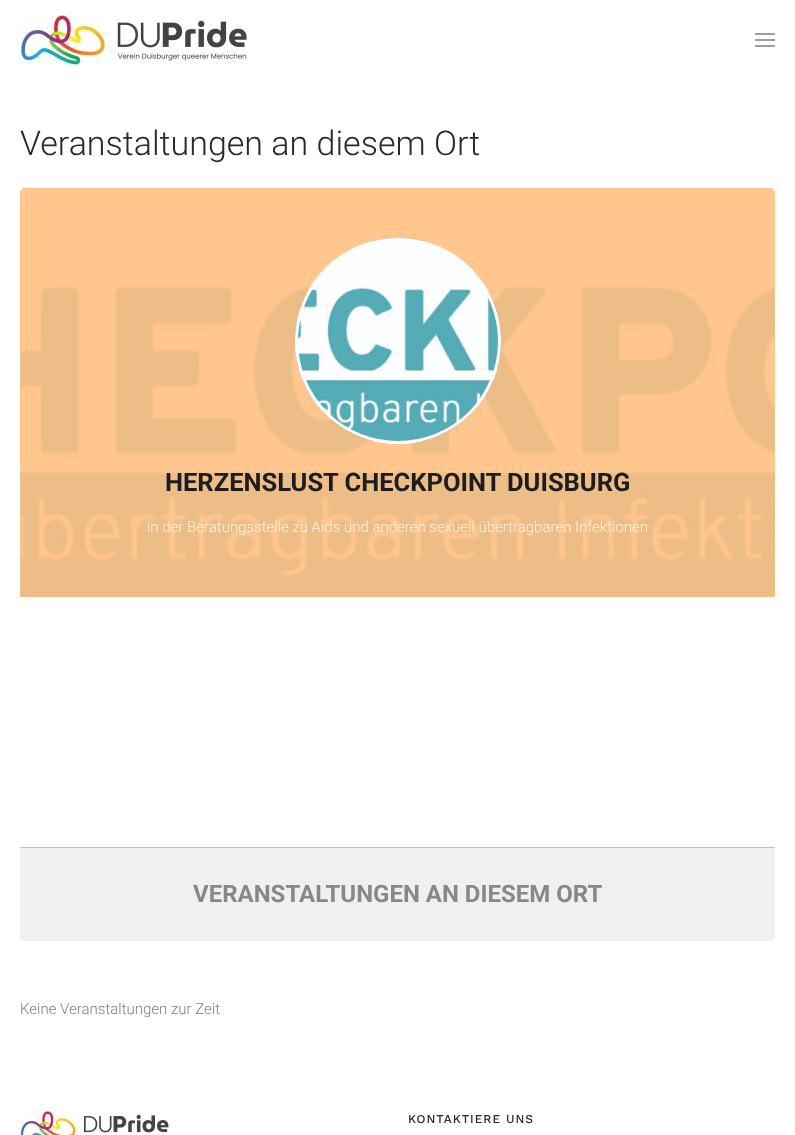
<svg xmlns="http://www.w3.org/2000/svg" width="795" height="1135">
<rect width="100%" height="100%" fill="#fff"/>
<image x="20" y="15" width="228" height="50" href="media/1.png"/>
<rect x="755" y="33" width="20" height="2" fill="#a0a0a0"/>
<rect x="755" y="39" width="20" height="2" fill="#a0a0a0"/>
<rect x="755" y="45" width="20" height="2" fill="#a0a0a0"/>
<text x="20" y="155" style="font-family:Roboto;font-size:34px;font-weight:300;fill:#292929">Veranstaltungen an diesem Ort</text>
<image x="20" y="188" width="755" height="409" href="media/2.png"/>
<path d="M25 188h745c3 0 5 2 5 5v404h-755v-404c0-3 2-5 5-5z" fill="#ffbf80e3"/>
<image x="295" y="238" width="206" height="206" href="media/3.png"/>
<circle cx="398" cy="341" r="101.5" fill="none" stroke="#fff" stroke-width="3"/>
<text x="165" y="491" style="font-family:Roboto;font-size:25.5px;font-weight:bold;fill:#1d1c21">HERZENSLUST CHECKPOINT DUISBURG</text>
<text x="147" y="532" style="font-family:Roboto;font-size:15px;font-weight:300;fill:#fcf2e7">in der Beratungsstelle zu Aids und anderen sexuell übertragbaren Infektionen</text>
<path d="M20 847h755v89c0 3-2 5-5 5h-745c-3 0-5-2-5-5z" fill="#f0f0f0"/>
<rect x="20" y="847" width="755" height="1" fill="#c1c1c1"/>
<text x="193" y="902" style="font-family:Roboto;font-size:24px;font-weight:bold;fill:#888">VERANSTALTUNGEN AN DIESEM ORT</text>
<text x="20" y="1014" style="font-family:Roboto;font-size:15px;font-weight:300;fill:#808080">Keine Veranstaltungen zur Zeit</text>
<image x="20" y="1111" width="149" height="24" href="media/4.png"/>
<text x="408" y="1123" style="font-family:Work Sans;font-size:12px;font-weight:500;letter-spacing:1px;fill:#292929">KONTAKTIERE UNS</text>
</svg>
